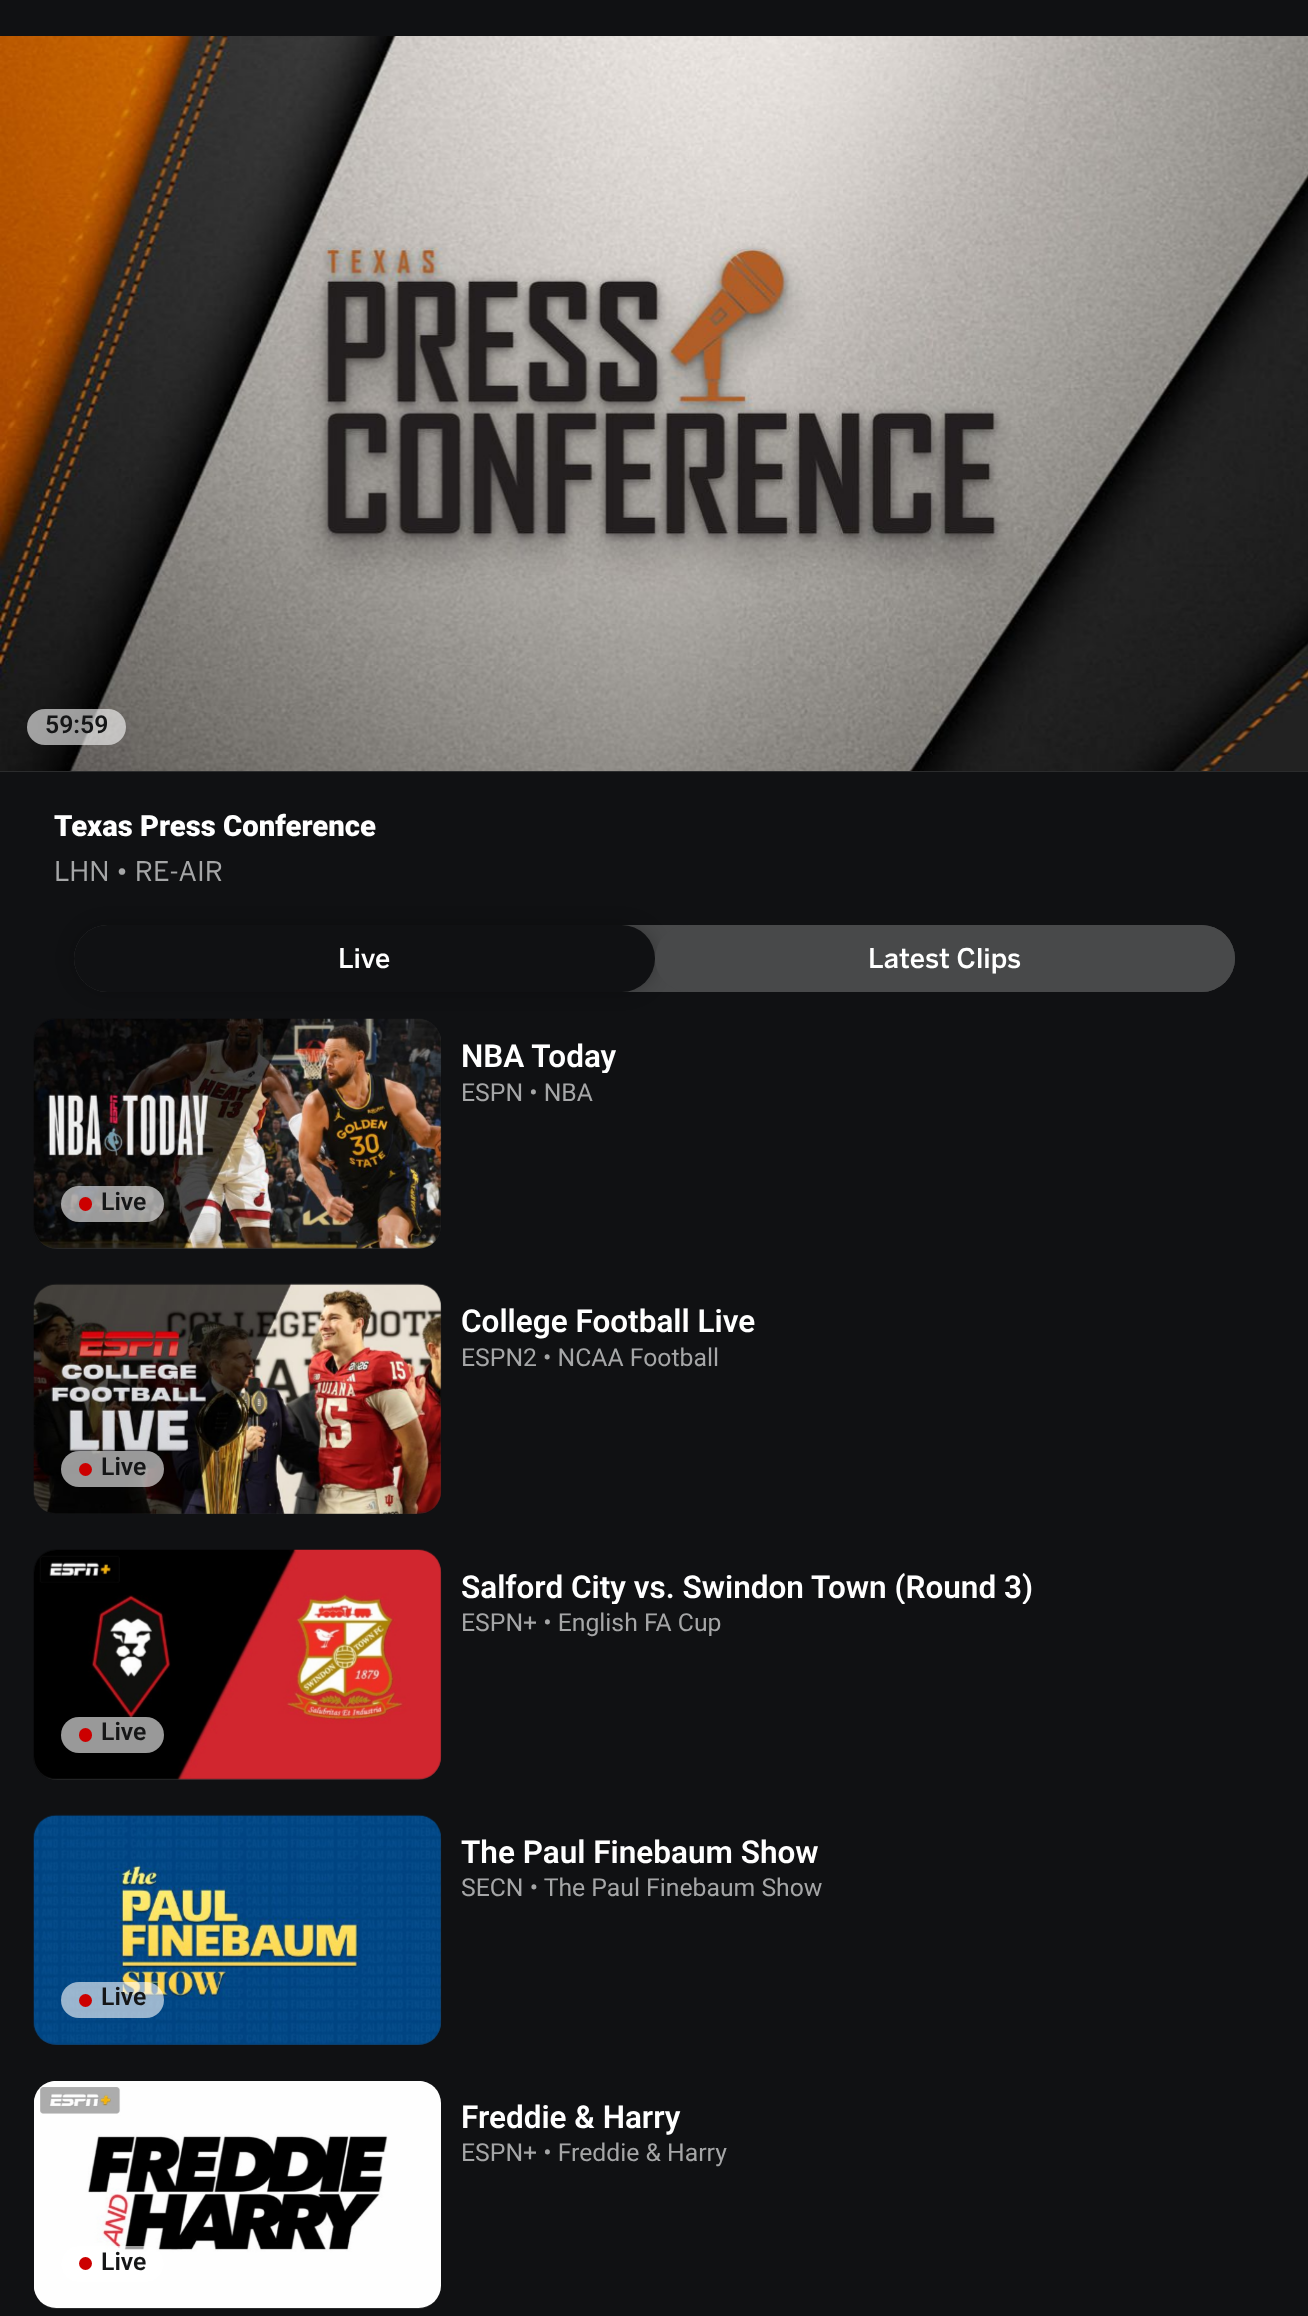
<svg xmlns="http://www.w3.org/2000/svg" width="1308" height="2316">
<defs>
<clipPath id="clip1"><rect x="461" y="1037" width="156" height="36"/></clipPath>
<clipPath id="clip2"><rect x="461" y="1568" width="572" height="36"/></clipPath>
</defs>
<rect width="100%" height="100%" fill="#101113"/>
<rect y="771" width="1308" height="1" fill="#2b2c2d"/>
<image x="0" y="36" width="1308" height="735" href="media/1.png"/>
<rect x="27" y="709" width="99" height="36" rx="18" fill="#ffffff99"/>
<text x="45" y="733" style="font-family:Roboto;font-size:24.75px;font-weight:600;fill:#151617">59:59</text>
<text x="54" y="836" style="font-family:Roboto;font-size:29.25px;font-weight:900;fill:#fff">Texas Press Conference</text>
<text x="54" y="881" style="font-family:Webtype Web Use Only;font-size:27px;fill:#a5a6a7">LHN • RE-AIR</text>
<rect x="74" y="925" width="1161" height="67" rx="33.5" fill="#48494a"/>
<rect x="74" y="925" width="581" height="67" rx="33.5" fill="#00000040" filter="blur(9px)"/>
<rect x="74" y="925" width="581" height="67" rx="33.5" fill="#101113"/>
<text x="338" y="968" style="font-family:Webtype Web Use Only;font-size:27px;font-weight:500;fill:#fff">Live</text>
<rect x="655" y="925" width="580" height="67" rx="33.5" fill="#48494a"/>
<text x="868" y="968" style="font-family:Webtype Web Use Only;font-size:27px;font-weight:500;fill:#fff">Latest Clips</text>
<g clip-path="url(#clip1)">
<text x="461" y="1067" style="font-family:Roboto;font-size:31.5px;font-weight:600;fill:#fff">NBA Today</text>
</g>
<text x="461" y="1101" style="font-family:Roboto;font-size:24.75px;fill:#a5a6a7">ESPN • NBA</text>
<rect x="34" y="1019" width="407" height="230" rx="23" fill="#2b2c2d"/>
<image x="33" y="1018" width="409" height="231" href="media/2.png"/>
<rect x="61" y="1186" width="103" height="36" rx="18" fill="#ffffff99"/>
<rect x="79" y="1197" width="13" height="14" rx="6.5" fill="#c00"/>
<text x="101" y="1210" style="font-family:Roboto;font-size:24.75px;font-weight:600;fill:#151617">Live</text>
<text x="461" y="1332" style="font-family:Roboto;font-size:31.5px;font-weight:600;fill:#fff">College Football Live</text>
<text x="461" y="1366" style="font-family:Roboto;font-size:24.75px;fill:#a5a6a7">ESPN2 • NCAA Football</text>
<rect x="34" y="1285" width="407" height="229" rx="23" fill="#2b2c2d"/>
<image x="33" y="1283" width="409" height="231" href="media/3.png"/>
<rect x="61" y="1451" width="103" height="36" rx="18" fill="#ffffff99"/>
<circle cx="85.5" cy="1469.5" r="6.5" fill="#c00"/>
<text x="101" y="1475" style="font-family:Roboto;font-size:24.75px;font-weight:600;fill:#151617">Live</text>
<g clip-path="url(#clip2)">
<text x="461" y="1598" style="font-family:Roboto;font-size:31.5px;font-weight:600;fill:#fff">Salford City vs. Swindon Town (Round 3)</text>
</g>
<text x="461" y="1631" style="font-family:Roboto;font-size:24.75px;fill:#a5a6a7">ESPN+ • English FA Cup</text>
<rect x="34" y="1550" width="407" height="230" rx="23" fill="#2b2c2d"/>
<image x="33" y="1549" width="409" height="231" href="media/4.png"/>
<rect x="61" y="1717" width="103" height="36" rx="18" fill="#ffffff99"/>
<rect x="79" y="1728" width="13" height="14" rx="6.5" fill="#c00"/>
<text x="101" y="1740" style="font-family:Roboto;font-size:24.75px;font-weight:600;fill:#151617">Live</text>
<text x="461" y="1863" style="font-family:Roboto;font-size:31.5px;font-weight:600;fill:#fff">The Paul Finebaum Show</text>
<text x="461" y="1896" style="font-family:Roboto;font-size:24.75px;fill:#a5a6a7">SECN • The Paul Finebaum Show</text>
<rect x="34" y="1816" width="407" height="229" rx="23" fill="#2b2c2d"/>
<image x="33" y="1814" width="409" height="231" href="media/5.png"/>
<rect x="61" y="1982" width="103" height="36" rx="18" fill="#ffffff99"/>
<circle cx="85.5" cy="2000.5" r="6.5" fill="#c00"/>
<text x="101" y="2005" style="font-family:Roboto;font-size:24.75px;font-weight:600;fill:#151617">Live</text>
<text x="461" y="2128" style="font-family:Roboto;font-size:31.5px;font-weight:600;fill:#fff">Freddie &amp; Harry</text>
<text x="461" y="2161" style="font-family:Roboto;font-size:24.75px;fill:#a5a6a7">ESPN+ • Freddie &amp; Harry</text>
<rect x="34" y="2081" width="407" height="228" rx="23" fill="#2b2c2d"/>
<image x="34" y="2081" width="407" height="227" href="media/6.png"/>
<rect x="61" y="2246" width="103" height="36" rx="18" fill="#ffffff99"/>
<circle cx="85.5" cy="2263.5" r="6.5" fill="#c00"/>
<text x="101" y="2270" style="font-family:Roboto;font-size:24.75px;font-weight:600;fill:#151617">Live</text>
</svg>
